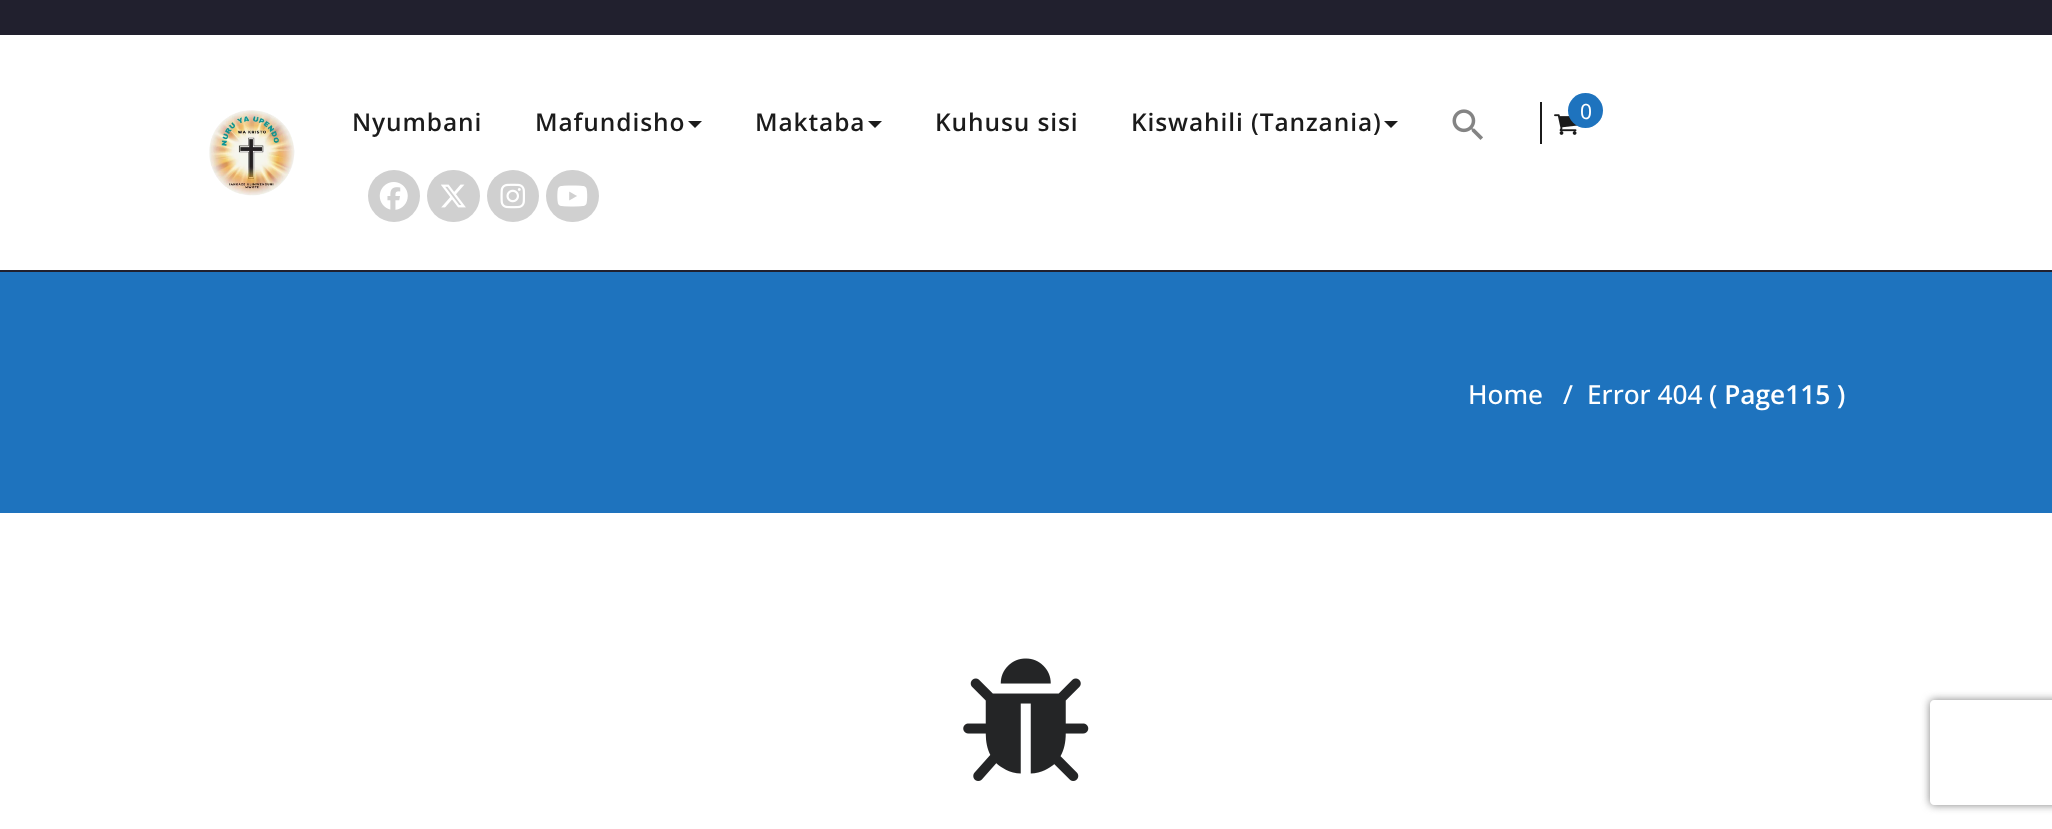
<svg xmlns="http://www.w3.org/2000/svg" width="2052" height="829">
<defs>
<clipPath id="clip1"><path d="M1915 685h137v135h-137zm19 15h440c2 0 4 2 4 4v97c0 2-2 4-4 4h-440c-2 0-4-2-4-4v-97c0-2 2-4 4-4z" clip-rule="evenodd"/></clipPath>
</defs>
<rect width="100%" height="100%" fill="#fff"/>
<rect width="2052" height="35" fill="#21202e"/>
<image x="209" y="110" width="86" height="86" href="media/1.png"/>
<text x="352" y="131" style="font-family:Open Sans;font-size:24.5px;font-weight:600;letter-spacing:0.9px;fill:#1b1b1b">Nyumbani</text>
<text x="535" y="131" style="font-family:Open Sans;font-size:24.5px;font-weight:600;letter-spacing:0.9px;fill:#1b1b1b">Mafundisho</text>
<path d="M688 121h14l-7 7z" fill="#1b1b1b"/>
<text x="755" y="131" style="font-family:Open Sans;font-size:24.5px;font-weight:600;letter-spacing:0.9px;fill:#1b1b1b">Maktaba</text>
<path d="M868 121h14l-7 7z" fill="#1b1b1b"/>
<text x="935" y="131" style="font-family:Open Sans;font-size:24.5px;font-weight:600;letter-spacing:0.9px;fill:#1b1b1b">Kuhusu sisi</text>
<text x="1131" y="131" style="font-family:Open Sans;font-size:24.5px;font-weight:600;letter-spacing:0.9px;fill:#1b1b1b">Kiswahili (Tanzania)</text>
<path d="M1384 121h14l-7 7z" fill="#1b1b1b"/>
<image x="1452" y="109" width="31" height="31" href="media/2.png"/>
<rect x="1540" y="102" width="2" height="42" fill="#1b1b1b"/>
<image x="1554" y="114" width="24" height="21" href="media/3.png"/>
<circle cx="1585.5" cy="110.5" r="17.5" fill="#1e73be"/>
<text x="1580" y="119" style="font-family:Noto Sans;font-size:21px;fill:#fff">0</text>
<circle cx="394" cy="196" r="26" fill="#d0d0d0"/>
<image x="379" y="182" width="29" height="28" href="media/4.png"/>
<rect x="427" y="170" width="53" height="52" rx="26" fill="#d0d0d0"/>
<image x="441" y="184" width="25" height="24" href="media/5.png"/>
<circle cx="513" cy="196" r="26" fill="#d0d0d0"/>
<image x="500" y="183" width="25" height="26" href="media/6.png"/>
<rect x="546" y="170" width="53" height="52" rx="26" fill="#d0d0d0"/>
<image x="557" y="185" width="31" height="22" href="media/7.png"/>
<rect y="272" width="2052" height="241" fill="#1e73be"/>
<rect y="270" width="2052" height="2" fill="#21202e"/>
<text x="1468" y="404" style="font-family:Open Sans;font-size:26.25px;font-weight:500;fill:#fff">Home</text>
<text x="1563" y="404" style="font-family:Open Sans;font-size:26.25px;font-weight:500;fill:#fff">/</text>
<text x="1587" y="404" style="font-family:Open Sans;font-size:26.25px;font-weight:500;fill:#fff">Error 404</text>
<text x="1709" y="404" style="font-family:Open Sans;font-size:26.25px;font-weight:600;fill:#fff">( Page115 )</text>
<image x="963" y="658" width="126" height="123" href="media/8.png"/>
<g clip-path="url(#clip1)">
<rect x="1930" y="700" width="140" height="105" rx="4" fill="#808080" filter="blur(4.5px)"/>
</g>
</svg>
